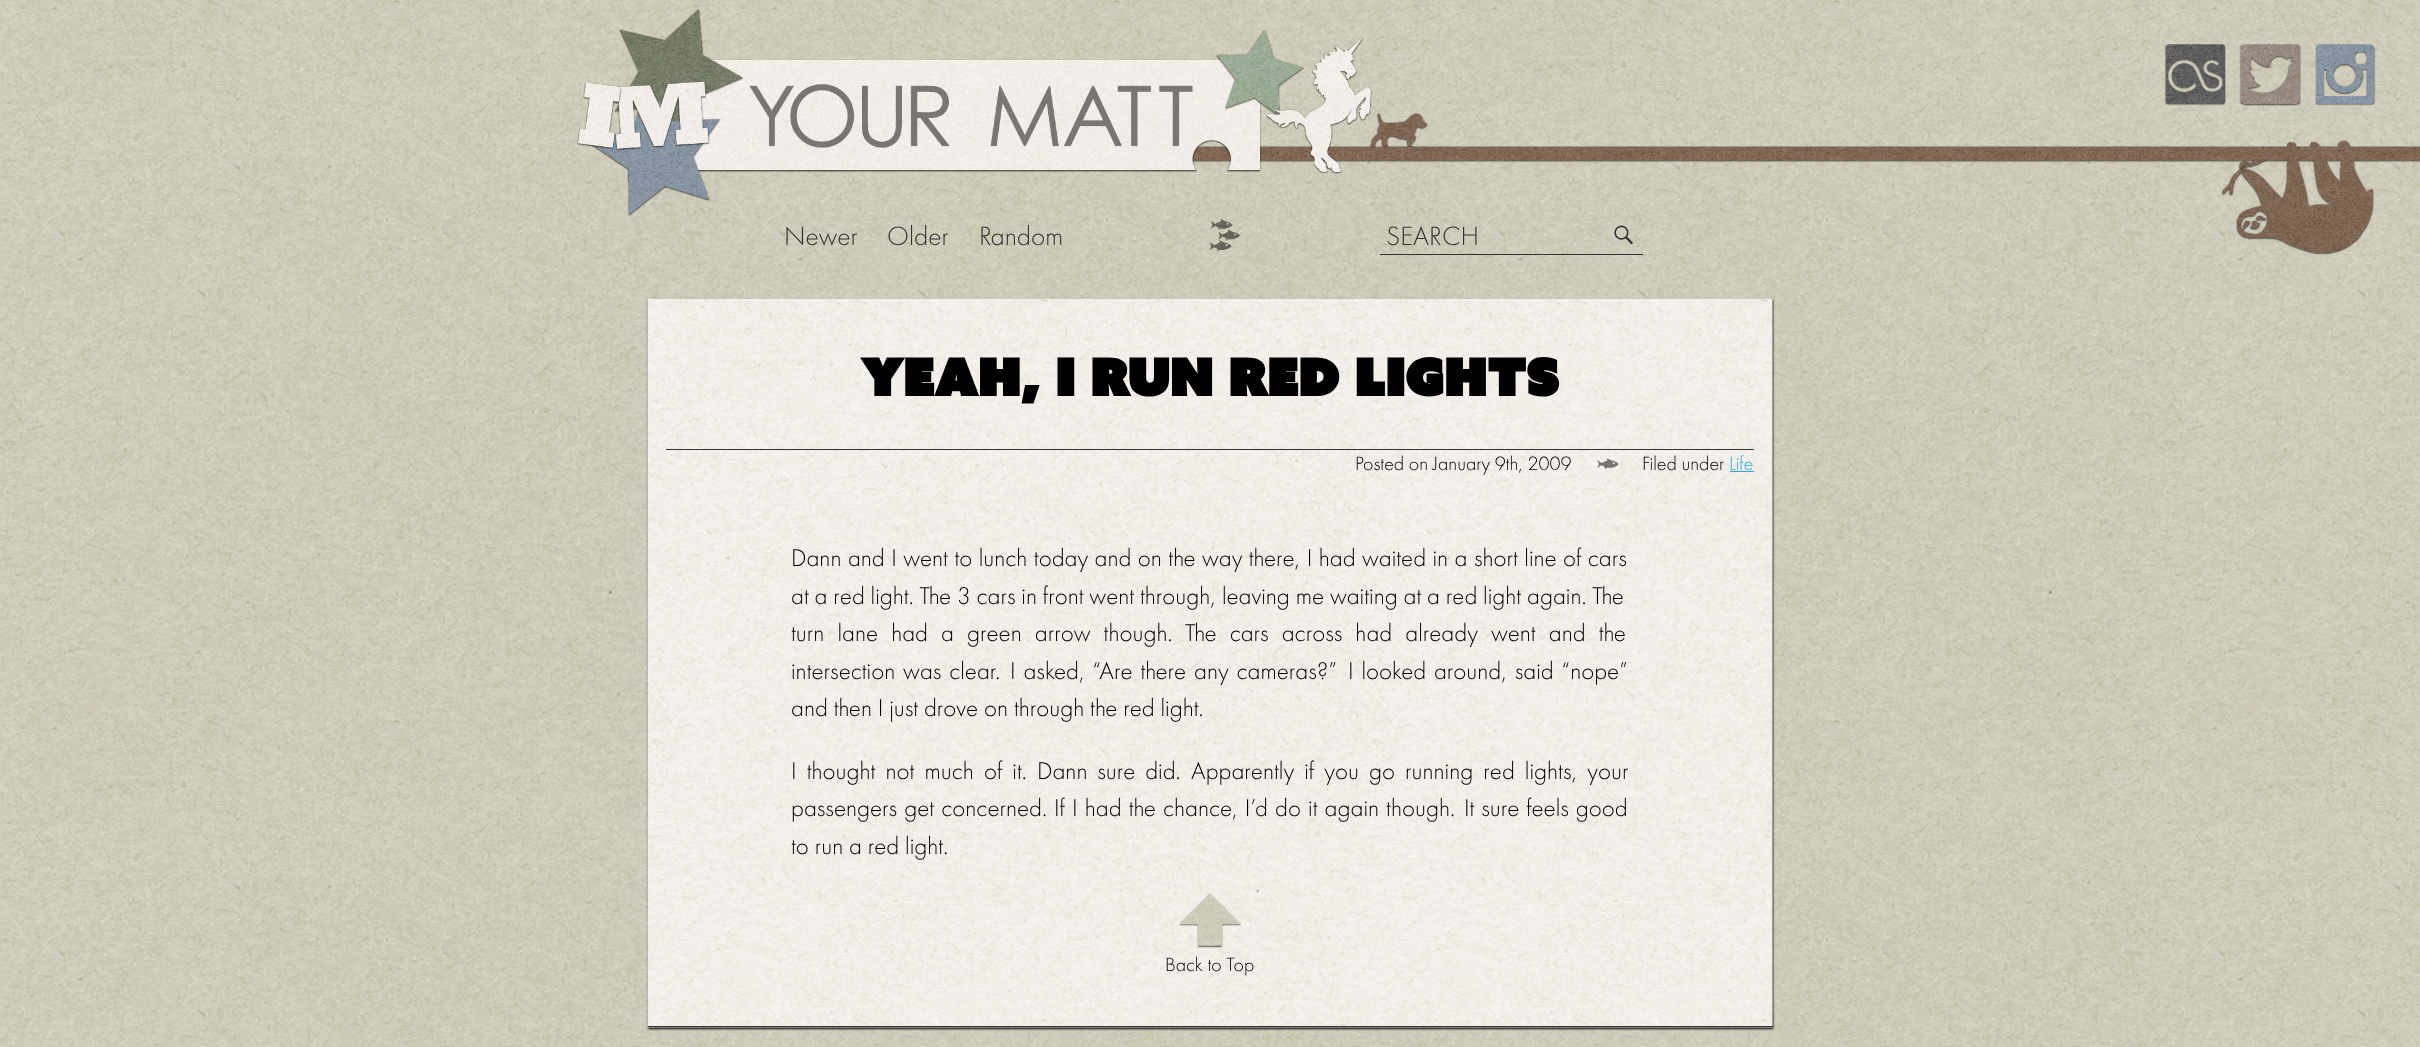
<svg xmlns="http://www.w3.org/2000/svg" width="2420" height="1047">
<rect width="100%" height="100%" fill="#fff"/>
<image x="0" y="0" width="2420" height="1047" href="media/1.png"/>
<image x="2164" y="44" width="62" height="62" href="media/2.png"/>
<image x="2239" y="44" width="62" height="62" href="media/3.png"/>
<image x="2315" y="44" width="61" height="62" href="media/4.png"/>
<image x="1369" y="112" width="59" height="35" href="media/6.png"/>
<image x="1192" y="146" width="1228" height="17" href="media/9.png"/>
<image x="577" y="9" width="796" height="207" href="media/5.png"/>
<text x="784" y="245" style="font-family:Futura PT;font-size:27.5px;font-weight:300;fill:#333">Newer</text>
<text x="887" y="245" style="font-family:Futura PT;font-size:27.5px;font-weight:300;fill:#333">Older</text>
<text x="979" y="245" style="font-family:Futura PT;font-size:27.5px;font-weight:300;fill:#333">Random</text>
<image x="1210" y="219" width="30" height="33" href="media/7.png"/>
<rect x="1380" y="254" width="263" height="1" fill="#333"/>
<text x="1386" y="245" style="font-family:Futura PT;font-size:27.5px;font-weight:300;fill:#333">SEARCH</text>
<image x="1614" y="225" width="19" height="20" href="media/8.png"/>
<image x="2221" y="140" width="153" height="115" href="media/10.png"/>
<rect x="648" y="300" width="1125" height="729" fill="#000" filter="blur(1px)"/>
<image x="647" y="298" width="1126" height="730" href="media/11.png"/>
<rect x="648" y="1026" width="1125" height="1" fill="#333"/>
<rect x="666" y="449" width="1088" height="1" fill="#333"/>
<text x="861" y="396" style="font-family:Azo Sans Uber;font-size:51.25px;font-weight:bold;fill:#000">Yeah, I Run Red Lights</text>
<text x="1355" y="470" style="font-family:Futura PT;font-size:20px;font-weight:300;fill:#000">Posted on January 9th, 2009</text>
<image x="1597" y="458" width="22" height="11" href="media/12.png"/>
<text x="1642" y="470" style="font-family:Futura PT;font-size:20px;font-weight:300;fill:#000">Filed under</text>
<text x="1729" y="470" style="font-family:Futura PT;font-size:20px;font-weight:300;fill:#29abe2">Life</text>
<rect x="1730" y="471" width="24" height="1" fill="#29abe2"/>
<text x="791" y="566" word-spacing="0.6" style="font-family:Futura PT;font-size:25px;font-weight:300;fill:#000">Dann and I went to lunch today and on the way there, I had waited in a short line of cars</text>
<text x="791" y="604" style="font-family:Futura PT;font-size:25px;font-weight:300;fill:#000">at a red light. The 3 cars in front went through, leaving me waiting at a red light again. The</text>
<text x="791" y="641" word-spacing="7.25" style="font-family:Futura PT;font-size:25px;font-weight:300;fill:#000">turn lane had a green arrow though.</text>
<text x="1185" y="641" word-spacing="7.25" style="font-family:Futura PT;font-size:25px;font-weight:300;fill:#000">The cars across had already went and the</text>
<text x="791" y="679" word-spacing="2" style="font-family:Futura PT;font-size:25px;font-weight:300;fill:#000">intersection was clear.</text>
<text x="1010" y="679" word-spacing="2" style="font-family:Futura PT;font-size:25px;font-weight:300;fill:#000">I asked, “Are there any cameras?”</text>
<text x="1348" y="679" word-spacing="2" style="font-family:Futura PT;font-size:25px;font-weight:300;fill:#000">I looked around, said “nope”</text>
<text x="791" y="716" style="font-family:Futura PT;font-size:25px;font-weight:300;fill:#000">and then I just drove on through the red light.</text>
<text x="791" y="779" word-spacing="4.25" style="font-family:Futura PT;font-size:25px;font-weight:300;fill:#000">I thought not much of it.</text>
<text x="1037" y="779" word-spacing="4" style="font-family:Futura PT;font-size:25px;font-weight:300;fill:#000">Dann sure did.</text>
<text x="1191" y="779" word-spacing="4.25" style="font-family:Futura PT;font-size:25px;font-weight:300;fill:#000">Apparently if you go running red lights, your</text>
<text x="791" y="816" word-spacing="1.25" style="font-family:Futura PT;font-size:25px;font-weight:300;fill:#000">passengers get concerned.</text>
<text x="1054" y="816" word-spacing="1.25" style="font-family:Futura PT;font-size:25px;font-weight:300;fill:#000">If I had the chance, I’d do it again though.</text>
<text x="1464" y="816" word-spacing="1" style="font-family:Futura PT;font-size:25px;font-weight:300;fill:#000">It sure feels good</text>
<text x="791" y="854" style="font-family:Futura PT;font-size:25px;font-weight:300;fill:#000">to run a red light.</text>
<image x="1179" y="893" width="62" height="55" href="media/13.png"/>
<text x="1165" y="971" style="font-family:Futura PT;font-size:20px;font-weight:300;fill:#000">Back to Top</text>
</svg>
